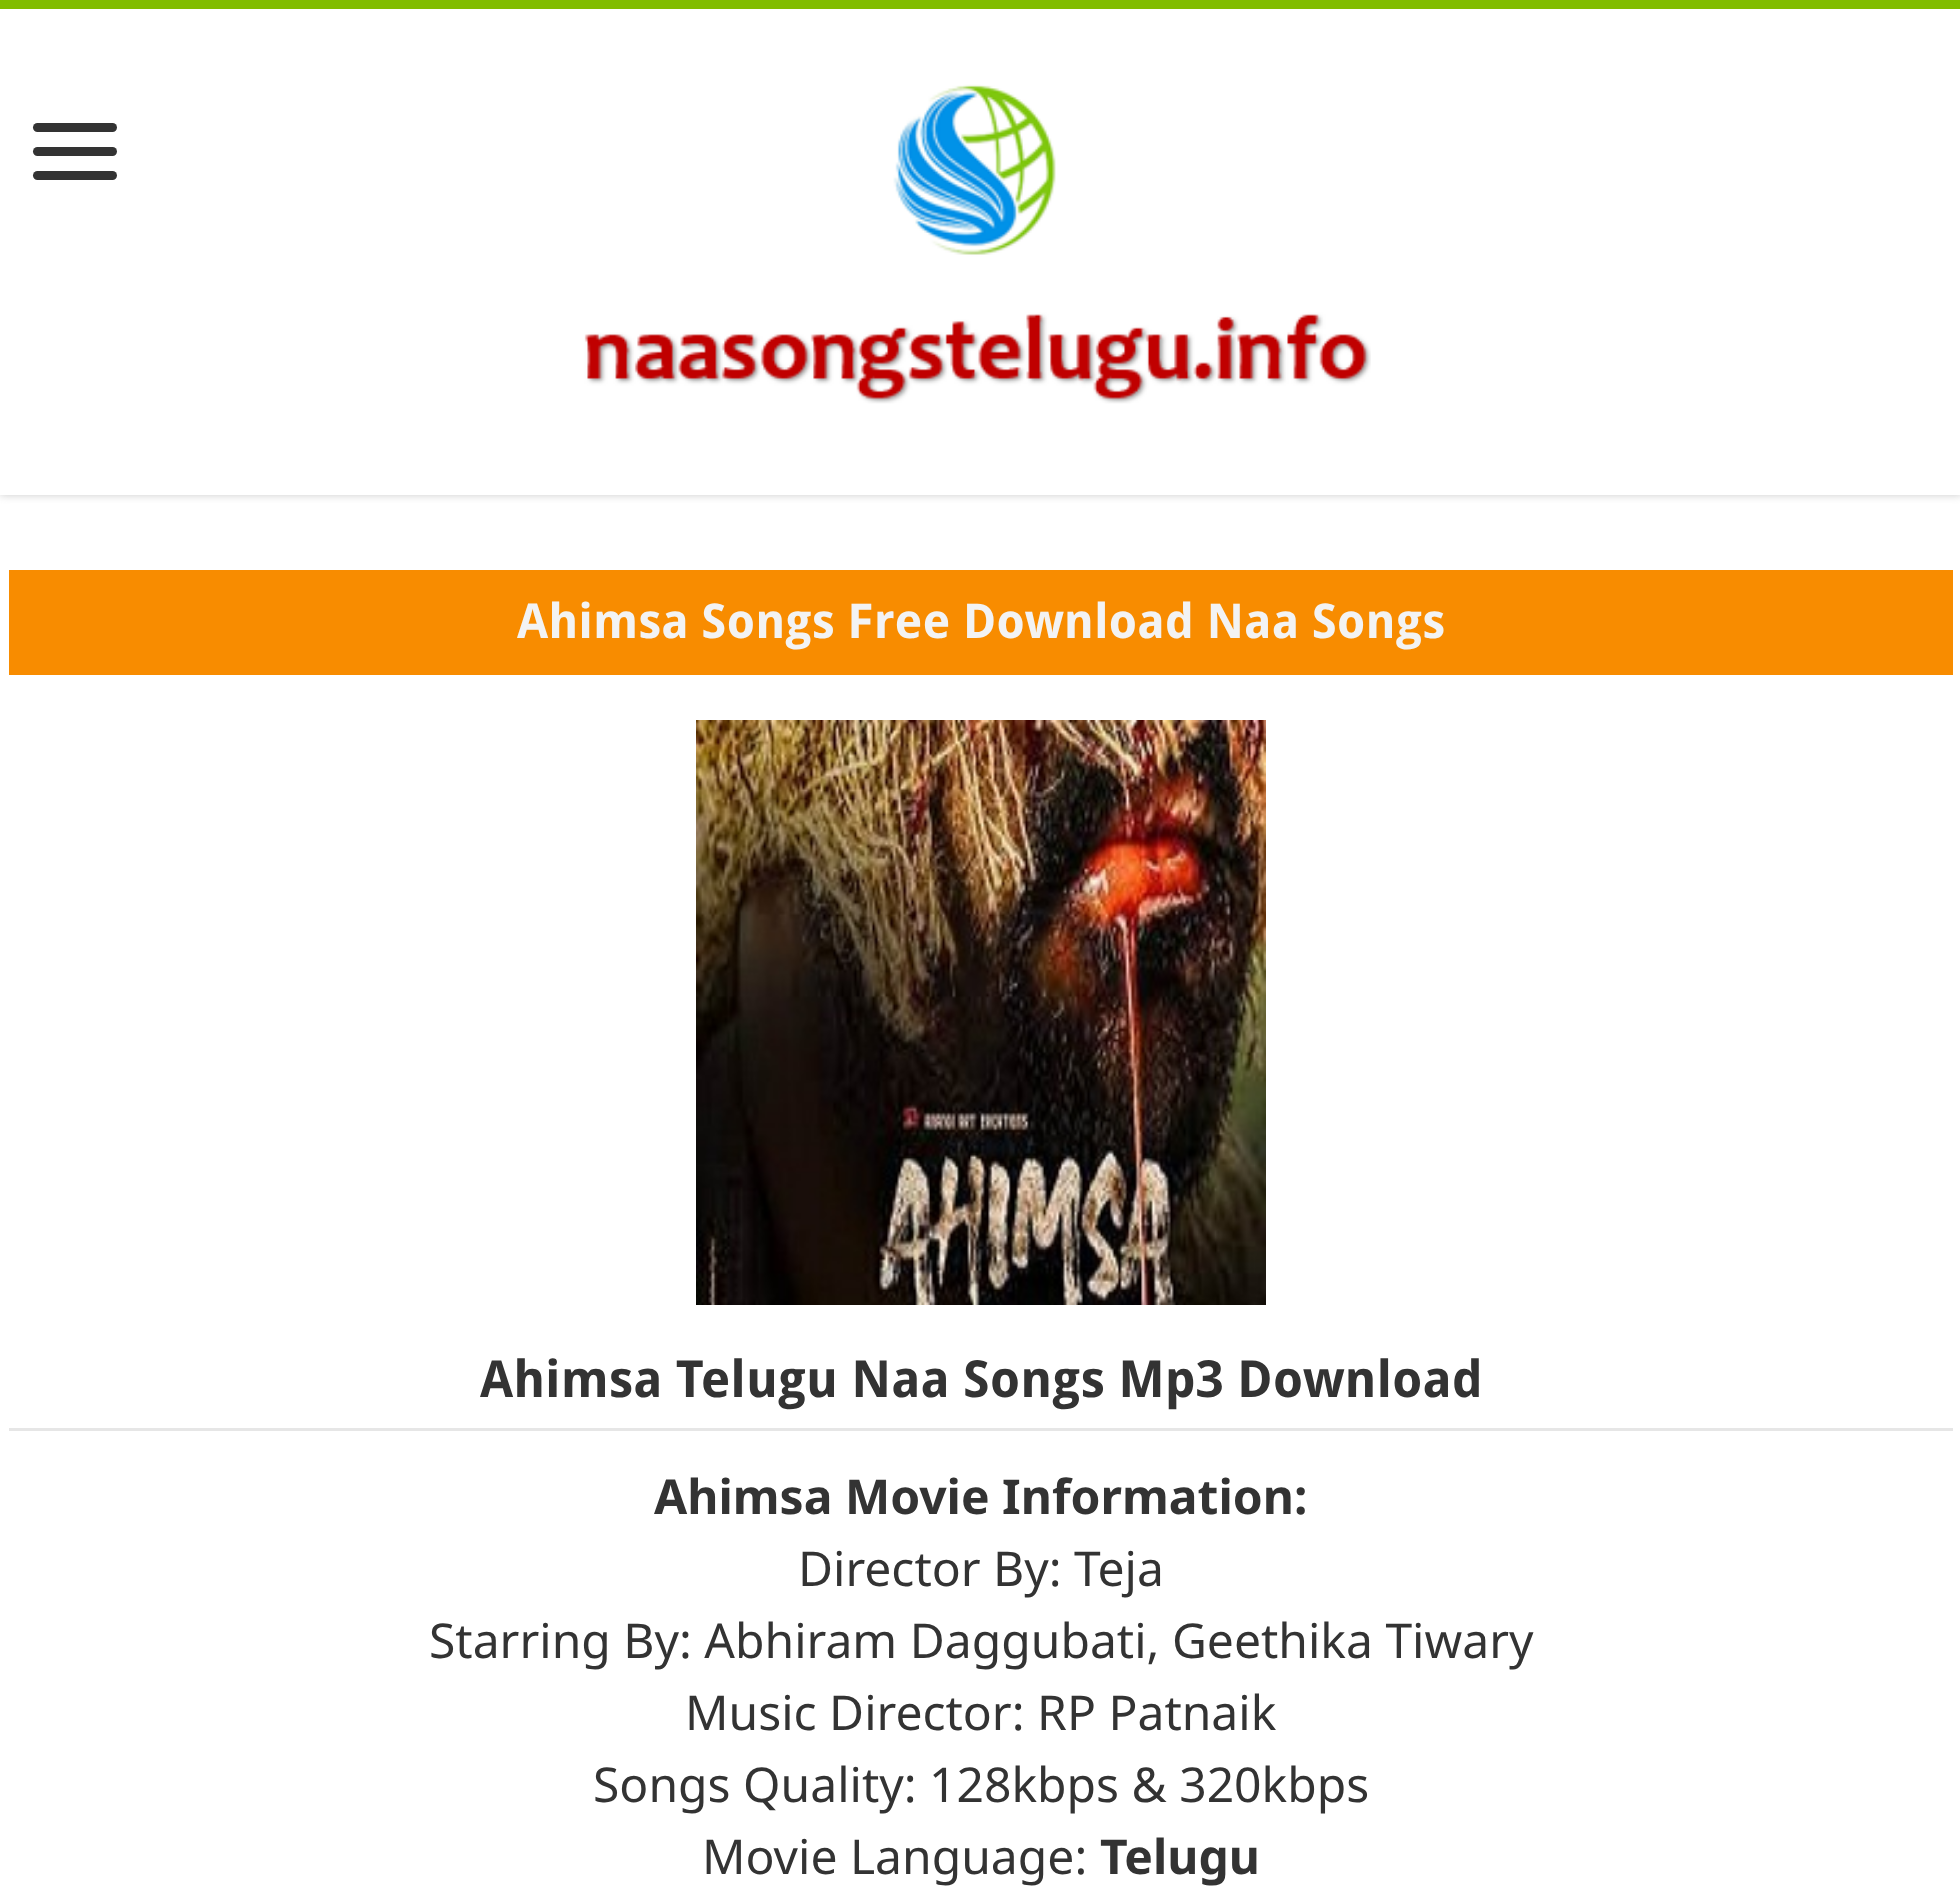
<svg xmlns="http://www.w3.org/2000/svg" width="1960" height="1903">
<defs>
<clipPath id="clip1"><rect x="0" y="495" width="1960" height="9"/></clipPath>
</defs>
<rect width="100%" height="100%" fill="#fff"/>
<g clip-path="url(#clip1)">
<rect width="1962" height="495" fill="#cacaca" filter="blur(4.5px)"/>
</g>
<rect width="1960" height="9" fill="#81bd00"/>
<rect x="33" y="123" width="84" height="9" rx="4.5" fill="#333"/>
<rect x="33" y="147" width="84" height="9" rx="4.5" fill="#333"/>
<rect x="33" y="171" width="84" height="9" rx="4.5" fill="#333"/>
<image x="584" y="84" width="787" height="320" href="media/1.png"/>
<rect x="9" y="570" width="1944" height="105" fill="#f88c00"/>
<text x="517" y="638" style="font-family:Droid Sans;font-size:48px;font-weight:bold;fill:#f3f3f3">Ahimsa Songs Free Download Naa Songs</text>
<image x="696" y="720" width="570" height="585" href="media/2.png"/>
<rect x="9" y="1428" width="1944" height="3" fill="#e6e6e6"/>
<text x="480" y="1397" style="font-family:Droid Sans;font-size:51px;font-weight:bold;fill:#333">Ahimsa Telugu Naa Songs Mp3 Download</text>
<text x="654" y="1514" style="font-family:Noto Sans;font-size:48px;font-weight:bold;fill:#333">Ahimsa Movie Information:</text>
<text x="798" y="1586" style="font-family:Noto Sans;font-size:48px;fill:#333">Director By: Teja</text>
<text x="429" y="1658" style="font-family:Noto Sans;font-size:48px;fill:#333">Starring By: Abhiram Daggubati, Geethika Tiwary</text>
<text x="685" y="1730" style="font-family:Noto Sans;font-size:48px;fill:#333">Music Director: RP Patnaik</text>
<text x="593" y="1802" style="font-family:Noto Sans;font-size:48px;fill:#333">Songs Quality: 128kbps &amp; 320kbps</text>
<text x="702" y="1874" style="font-family:Noto Sans;font-size:48px;fill:#333">Movie Language:</text>
<text x="1100" y="1874" style="font-family:Noto Sans;font-size:48px;font-weight:bold;fill:#333">Telugu</text>
</svg>
